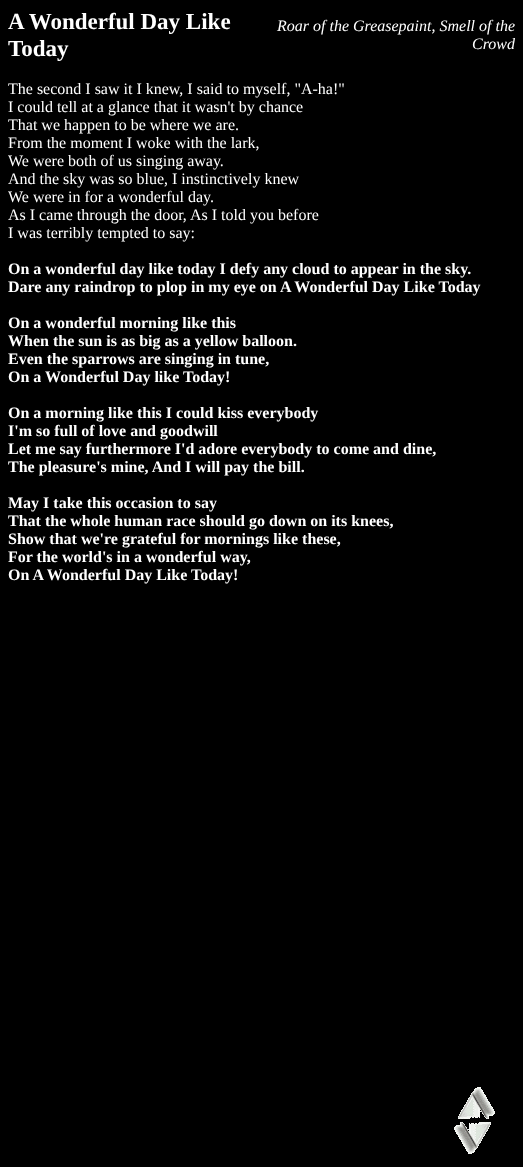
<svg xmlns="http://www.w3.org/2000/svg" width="523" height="1167">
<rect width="100%" height="100%" fill="#000"/>
<text x="8" y="29" style="font-family:Liberation Serif;font-size:23px;font-weight:bold;fill:#fff">A Wonderful Day Like</text>
<text x="8" y="56" style="font-family:Liberation Serif;font-size:23px;font-weight:bold;fill:#fff">Today</text>
<text x="277" y="31" style="font-family:Liberation Serif;font-size:16px;font-style:italic;fill:#fff">Roar of the Greasepaint, Smell of the</text>
<text x="472" y="49" style="font-family:Liberation Serif;font-size:16px;font-style:italic;fill:#fff">Crowd</text>
<text x="8" y="94" style="font-family:Liberation Serif;font-size:16px;fill:#fff">The second I saw it I knew, I said to myself, "A-ha!"</text>
<text x="8" y="112" style="font-family:Liberation Serif;font-size:16px;fill:#fff">I could tell at a glance that it wasn't by chance</text>
<text x="8" y="130" style="font-family:Liberation Serif;font-size:16px;fill:#fff">That we happen to be where we are.</text>
<text x="8" y="148" style="font-family:Liberation Serif;font-size:16px;fill:#fff">From the moment I woke with the lark,</text>
<text x="8" y="166" style="font-family:Liberation Serif;font-size:16px;fill:#fff">We were both of us singing away.</text>
<text x="8" y="184" style="font-family:Liberation Serif;font-size:16px;fill:#fff">And the sky was so blue, I instinctively knew</text>
<text x="8" y="202" style="font-family:Liberation Serif;font-size:16px;fill:#fff">We were in for a wonderful day.</text>
<text x="8" y="220" style="font-family:Liberation Serif;font-size:16px;fill:#fff">As I came through the door, As I told you before</text>
<text x="8" y="238" style="font-family:Liberation Serif;font-size:16px;fill:#fff">I was terribly tempted to say:</text>
<text x="8" y="274" style="font-family:Liberation Serif;font-size:16px;font-weight:bold;fill:#fff">On a wonderful day like today I defy any cloud to appear in the sky.</text>
<text x="8" y="292" style="font-family:Liberation Serif;font-size:16px;font-weight:bold;fill:#fff">Dare any raindrop to plop in my eye on A Wonderful Day Like Today</text>
<text x="8" y="328" style="font-family:Liberation Serif;font-size:16px;font-weight:bold;fill:#fff">On a wonderful morning like this</text>
<text x="8" y="346" style="font-family:Liberation Serif;font-size:16px;font-weight:bold;fill:#fff">When the sun is as big as a yellow balloon.</text>
<text x="8" y="364" style="font-family:Liberation Serif;font-size:16px;font-weight:bold;fill:#fff">Even the sparrows are singing in tune,</text>
<text x="8" y="382" style="font-family:Liberation Serif;font-size:16px;font-weight:bold;fill:#fff">On a Wonderful Day like Today!</text>
<text x="8" y="418" style="font-family:Liberation Serif;font-size:16px;font-weight:bold;fill:#fff">On a morning like this I could kiss everybody</text>
<text x="8" y="436" style="font-family:Liberation Serif;font-size:16px;font-weight:bold;fill:#fff">I'm so full of love and goodwill</text>
<text x="8" y="454" style="font-family:Liberation Serif;font-size:16px;font-weight:bold;fill:#fff">Let me say furthermore I'd adore everybody to come and dine,</text>
<text x="8" y="472" style="font-family:Liberation Serif;font-size:16px;font-weight:bold;fill:#fff">The pleasure's mine, And I will pay the bill.</text>
<text x="8" y="508" style="font-family:Liberation Serif;font-size:16px;font-weight:bold;fill:#fff">May I take this occasion to say</text>
<text x="8" y="526" style="font-family:Liberation Serif;font-size:16px;font-weight:bold;fill:#fff">That the whole human race should go down on its knees,</text>
<text x="8" y="544" style="font-family:Liberation Serif;font-size:16px;font-weight:bold;fill:#fff">Show that we're grateful for mornings like these,</text>
<text x="8" y="562" style="font-family:Liberation Serif;font-size:16px;font-weight:bold;fill:#fff">For the world's in a wonderful way,</text>
<text x="8" y="580" style="font-family:Liberation Serif;font-size:16px;font-weight:bold;fill:#fff">On A Wonderful Day Like Today!</text>
<image x="458" y="1087" width="37" height="32" href="media/1.png"/>
<image x="454" y="1122" width="37" height="32" href="media/2.png"/>
</svg>
